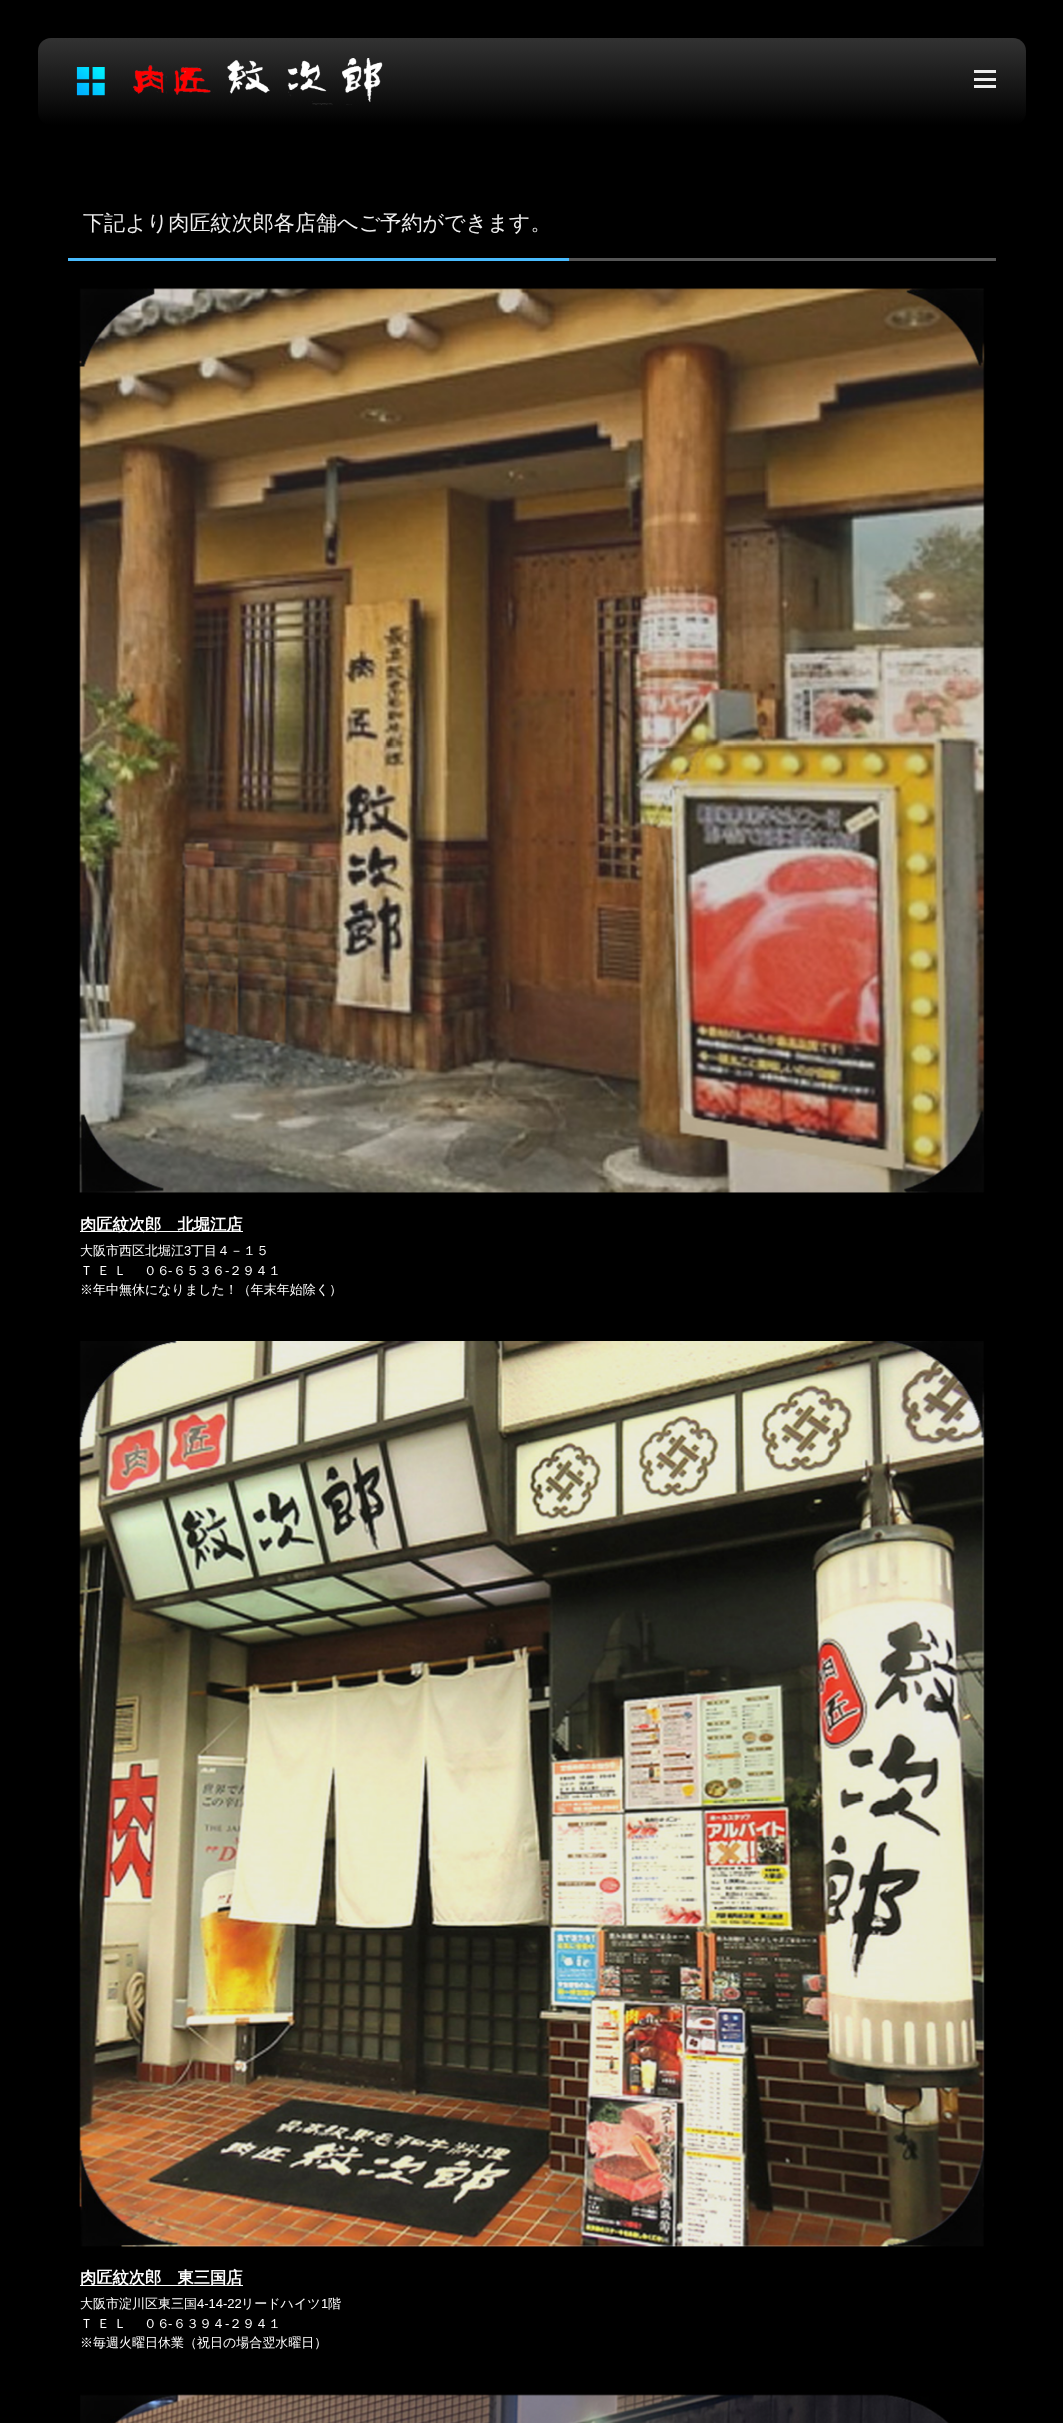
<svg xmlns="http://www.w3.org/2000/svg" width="1063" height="2423">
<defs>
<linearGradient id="g1" gradientUnits="userSpaceOnUse" x1="532" y1="37" x2="532" y2="125"><stop offset="0" stop-color="#333"/><stop offset="1" stop-color="#000"/></linearGradient>
</defs>
<rect width="100%" height="100%" fill="#000"/>
<rect x="38" y="38" width="988" height="87" rx="13" fill="url(#g1)"/>
<rect x="974" y="70" width="22" height="3" fill="#eee"/>
<rect x="974" y="78" width="22" height="3" fill="#eee"/>
<rect x="974" y="85" width="22" height="3" fill="#eee"/>
<image x="76" y="58" width="307" height="47" href="media/1.png"/>
<rect x="569" y="258" width="427" height="3" fill="#555"/>
<rect x="68" y="258" width="501" height="3" fill="#49bbfe"/>
<text x="83" y="230" style="font-family:WenQuanYi Zen Hei;font-size:21.1px;font-weight:500;fill:#eee">下記より肉匠紋次郎各店舗へご予約ができます。</text>
<image x="79" y="288" width="906" height="905" href="media/2.png"/>
<rect x="80" y="1231" width="163" height="1" fill="#fff"/>
<text x="80" y="1230" style="font-family:WenQuanYi Zen Hei;font-size:16.25px;font-weight:bold;fill:#fff">肉匠紋次郎　北堀江店</text>
<text x="80" y="1255" style="font-family:WenQuanYi Zen Hei;font-size:13px;font-weight:500;fill:#fff">大阪市西区北堀江</text>
<text x="184" y="1255" style="font-family:Liberation Sans;font-size:13px;fill:#fff">3</text>
<text x="191" y="1255" style="font-family:WenQuanYi Zen Hei;font-size:13px;font-weight:500;fill:#fff">丁目４－１５</text>
<text x="80" y="1275" style="font-family:WenQuanYi Zen Hei;font-size:13px;font-weight:500;fill:#fff">Ｔ Ｅ Ｌ 　０６</text>
<text x="168" y="1275" style="font-family:Liberation Sans;font-size:13px;fill:#fff">-</text>
<text x="173" y="1275" style="font-family:WenQuanYi Zen Hei;font-size:13px;font-weight:500;fill:#fff">６５３６</text>
<text x="225" y="1275" style="font-family:Liberation Sans;font-size:13px;fill:#fff">-</text>
<text x="229" y="1275" style="font-family:WenQuanYi Zen Hei;font-size:13px;font-weight:500;fill:#fff">２９４１</text>
<text x="80" y="1294" style="font-family:WenQuanYi Zen Hei;font-size:13px;font-weight:500;fill:#fff">※年中無休になりました！（年末年始除く）</text>
<image x="79" y="1341" width="906" height="906" href="media/3.png"/>
<rect x="80" y="2285" width="163" height="1" fill="#fff"/>
<text x="80" y="2283" style="font-family:WenQuanYi Zen Hei;font-size:16.25px;font-weight:bold;fill:#fff">肉匠紋次郎　東三国店</text>
<text x="80" y="2308" style="font-family:WenQuanYi Zen Hei;font-size:13px;font-weight:500;fill:#fff">大阪市淀川区東三国</text>
<text x="197" y="2308" style="font-family:Liberation Sans;font-size:13px;fill:#fff">4-14-22</text>
<text x="241" y="2308" style="font-family:WenQuanYi Zen Hei;font-size:13px;font-weight:500;fill:#fff">リードハイツ</text>
<text x="321" y="2308" style="font-family:Liberation Sans;font-size:13px;fill:#fff">1</text>
<text x="328" y="2308" style="font-family:WenQuanYi Zen Hei;font-size:13px;font-weight:500;fill:#fff">階</text>
<text x="80" y="2328" style="font-family:WenQuanYi Zen Hei;font-size:13px;font-weight:500;fill:#fff">Ｔ Ｅ Ｌ　 ０６</text>
<text x="168" y="2328" style="font-family:Liberation Sans;font-size:13px;fill:#fff">-</text>
<text x="173" y="2328" style="font-family:WenQuanYi Zen Hei;font-size:13px;font-weight:500;fill:#fff">６３９４</text>
<text x="225" y="2328" style="font-family:Liberation Sans;font-size:13px;fill:#fff">-</text>
<text x="229" y="2328" style="font-family:WenQuanYi Zen Hei;font-size:13px;font-weight:500;fill:#fff">２９４１</text>
<text x="80" y="2347" style="font-family:WenQuanYi Zen Hei;font-size:13px;font-weight:500;fill:#fff">※毎週火曜日休業（祝日の場合翌水曜日）</text>
<image x="80" y="2394" width="869" height="29" href="media/4.png"/>
</svg>
